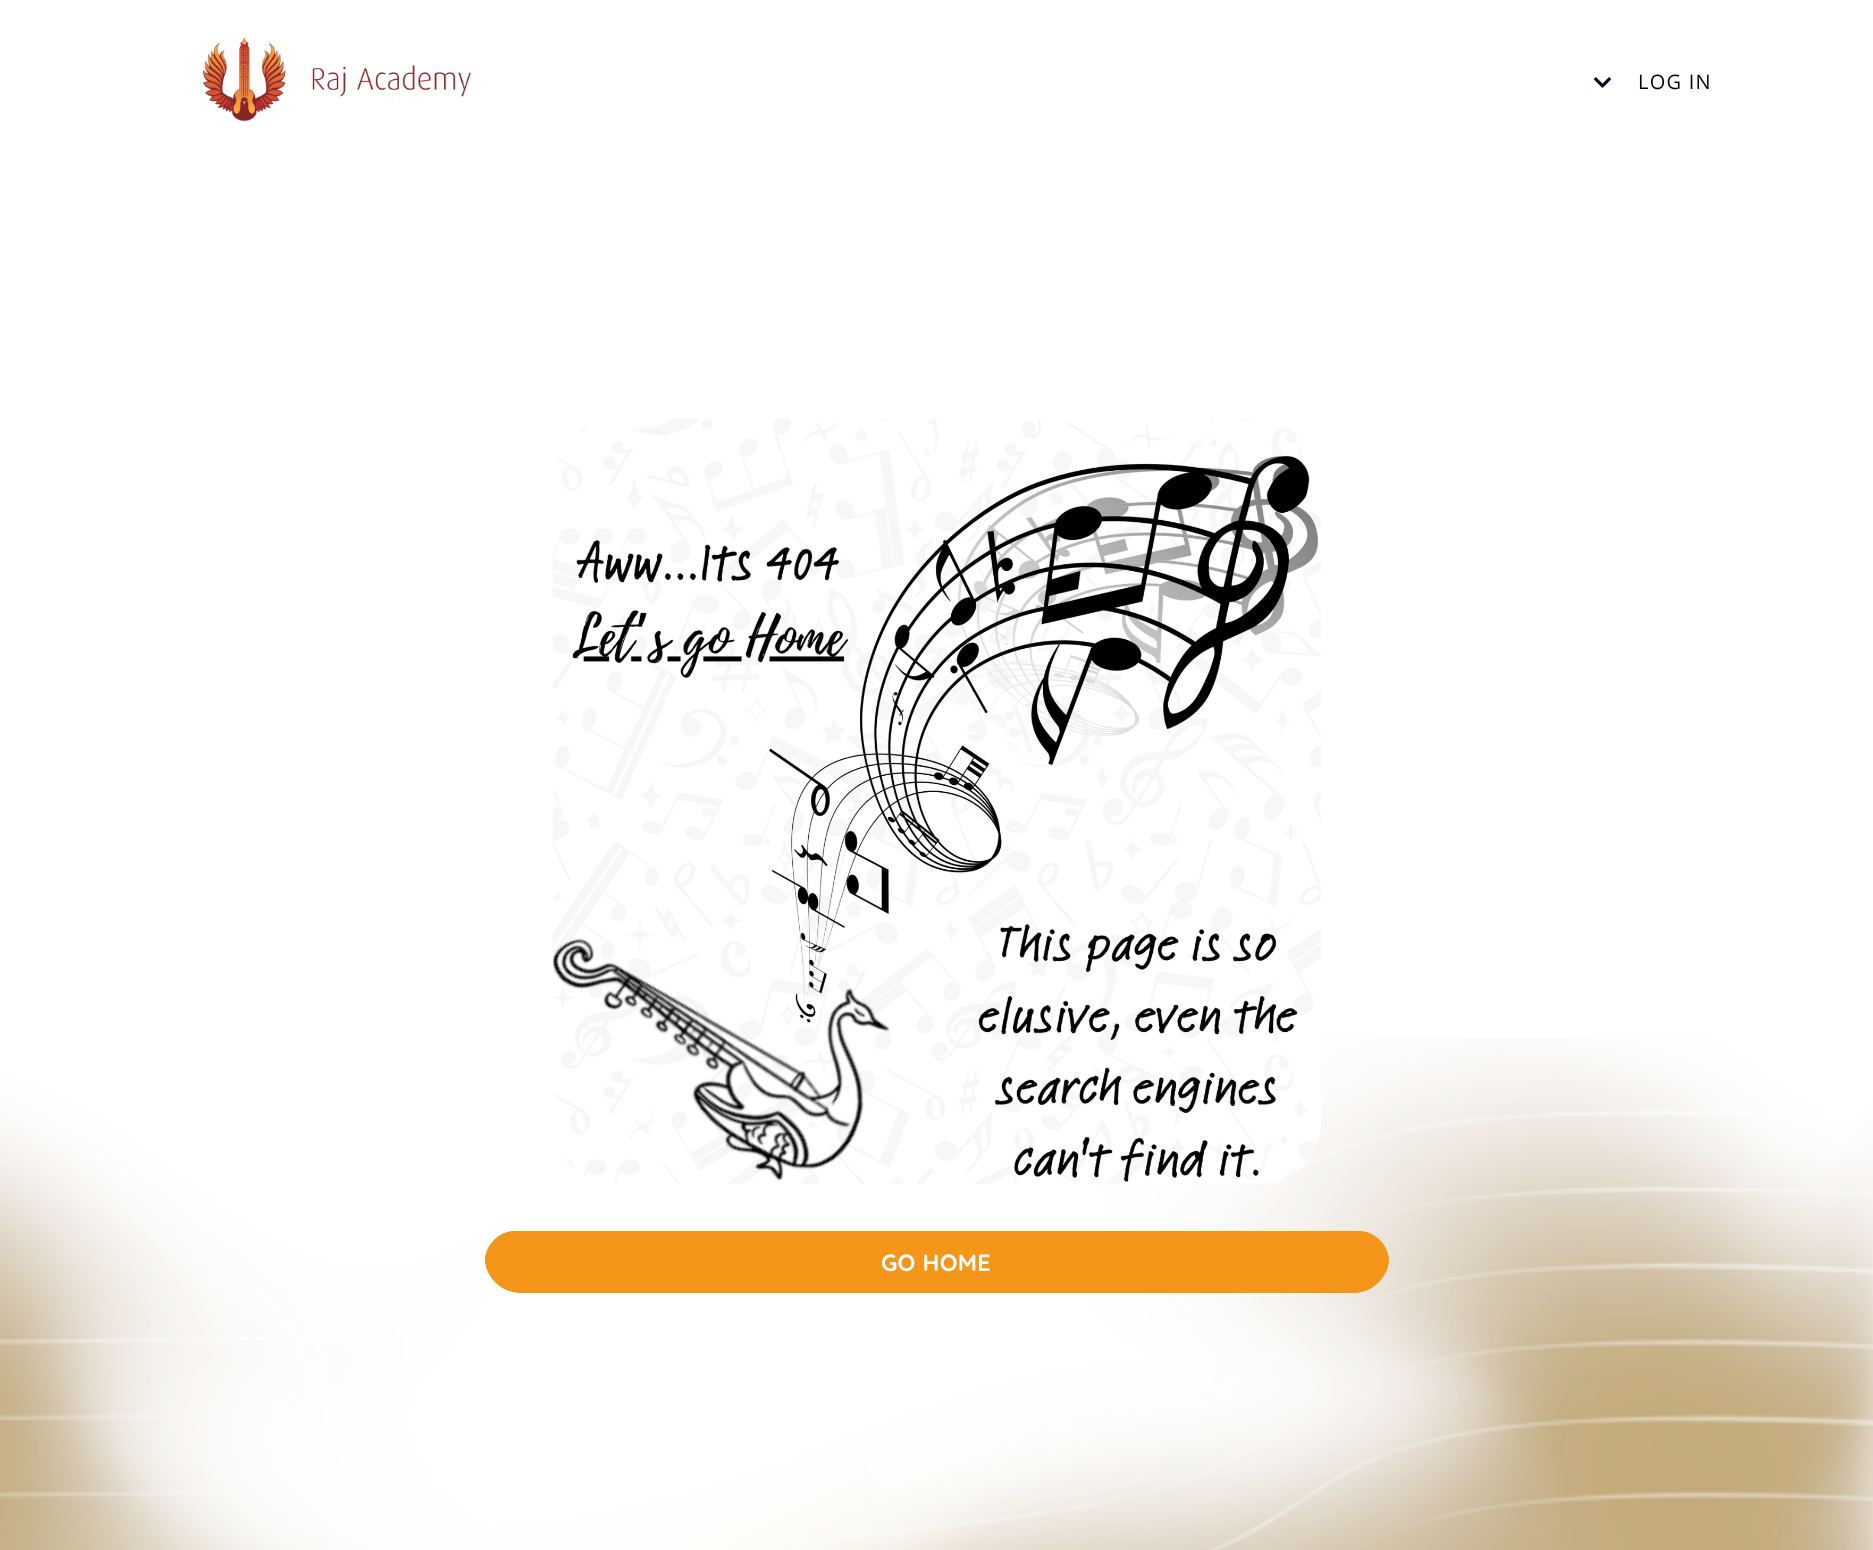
<svg xmlns="http://www.w3.org/2000/svg" width="1873" height="1550">
<defs>
<clipPath id="clip1"><rect x="485" y="1221" width="904" height="72" rx="36"/></clipPath>
</defs>
<rect width="100%" height="100%" fill="#fff"/>
<image x="203" y="37" width="268" height="85" href="media/1.png"/>
<image x="1594" y="77" width="17" height="11" href="media/2.png"/>
<text x="1638" y="89" style="font-family:Open Sans;font-size:20px;letter-spacing:1.25px;fill:#0a001c">LOG IN</text>
<image x="0" y="1038" width="1873" height="512" href="media/5.png"/>
<image x="1872" y="1342" width="1" height="160" href="media/3.png"/>
<image x="552" y="419" width="769" height="765" href="media/4.png"/>
<g clip-path="url(#clip1)">
<path d="M516 1231h842c17 0 31 14 31 31v-5c0 20-16 36-36 36h-832c-20 0-36-16-36-36v5c0-17 14-31 31-31z" fill="#f49619"/>
</g>
<path d="M516 1231c-16 0-30 13-31 29c1 18 17 33 36 33h832c19 0 35-15 36-33c-1-16-15-29-31-29zm0 3c-15 0-28 13-28 28c0 15 13 28 28 28h842c15 0 28-13 28-28c0-15-13-28-28-28z" fill="#f49619" fill-rule="evenodd"/>
<text x="881" y="1271" style="font-family:Quicksand;font-size:23.5px;font-weight:bold;letter-spacing:0.25px;fill:#fcfeff">GO HOME</text>
</svg>
